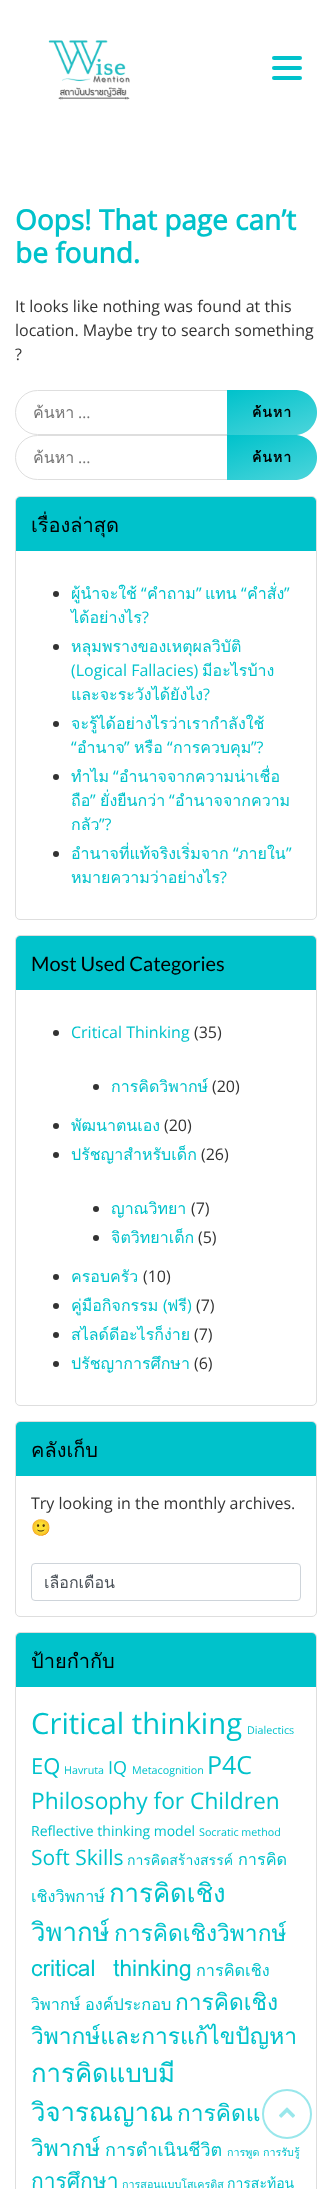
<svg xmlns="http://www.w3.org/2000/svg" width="332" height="2189">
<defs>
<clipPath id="clip1"><rect x="33" y="400" width="251" height="25"/></clipPath>
<linearGradient id="g1" gradientUnits="userSpaceOnUse" x1="261" y1="379" x2="283" y2="446"><stop offset="0" stop-color="#00c2cb"/><stop offset="1" stop-color="#4dd5db"/></linearGradient>
<clipPath id="clip2"><rect x="33" y="445" width="251" height="25"/></clipPath>
<linearGradient id="g2" gradientUnits="userSpaceOnUse" x1="261" y1="424" x2="283" y2="491"><stop offset="0" stop-color="#00c2cb"/><stop offset="1" stop-color="#4dd5db"/></linearGradient>
<clipPath id="clip3"><rect x="44" y="1570" width="228" height="24"/></clipPath>
</defs>
<rect width="100%" height="100%" fill="#fff"/>
<image x="48" y="40" width="82" height="60" href="media/1.png"/>
<rect x="272" y="56" width="30" height="4" rx="2" fill="#00c2cb"/>
<rect x="272" y="66" width="30" height="4" rx="2" fill="#00c2cb"/>
<rect x="272" y="76" width="30" height="4" rx="2" fill="#00c2cb"/>
<text x="15" y="230" style="font-family:Open Sans;font-size:28px;font-weight:bold;fill:#00c2cb">Oops! That page can’t</text>
<text x="15" y="263" style="font-family:Open Sans;font-size:28px;font-weight:bold;fill:#00c2cb">be found.</text>
<text x="15" y="312" style="font-family:Open Sans;font-size:16px;fill:#333">It looks like nothing was found at this</text>
<text x="15" y="336" style="font-family:Open Sans;font-size:16px;fill:#333">location. Maybe try to search something</text>
<text x="15" y="360" style="font-family:Open Sans;font-size:16px;fill:#333">?</text>
<rect x="15.5" y="390.5" width="301" height="44" rx="22" fill="none" stroke="#dedede"/>
<g clip-path="url(#clip1)">
<text x="33" y="418" style="font-family:Loma;font-size:16px;fill:#757575">ค้นหา</text>
</g>
<text x="78" y="418" style="font-family:Open Sans;font-size:16px;fill:#757575">…</text>
<path d="M227 390h67.5c12.5 0 22.5 10 22.5 22.5c0 12.5-10 22.5-22.5 22.5h-67.5z" fill="url(#g1)"/>
<text x="252" y="417" style="font-family:Loma;font-size:14px;font-weight:bold;letter-spacing:1px;fill:#000">ค้นหา</text>
<rect x="15.5" y="435.5" width="301" height="44" rx="22" fill="none" stroke="#dedede"/>
<g clip-path="url(#clip2)">
<text x="33" y="463" style="font-family:Loma;font-size:16px;fill:#757575">ค้นหา</text>
</g>
<text x="78" y="463" style="font-family:Open Sans;font-size:16px;fill:#757575">…</text>
<path d="M227 435h67.5c12.5 0 22.5 10 22.5 22.5c0 12.5-10 22.5-22.5 22.5h-67.5z" fill="url(#g2)"/>
<text x="252" y="462" style="font-family:Loma;font-size:14px;font-weight:bold;letter-spacing:1px;fill:#000">ค้นหา</text>
<rect x="15.5" y="496.5" width="301" height="423" rx="4.5" fill="none" stroke="#dedede"/>
<path d="M20 497h292c2 0 4 2 4 4v50h-300v-50c0-2 2-4 4-4z" fill="#00c2cb"/>
<text x="31" y="532" style="font-family:Loma;font-size:20px;fill:#000">เรื่องล่าสุด</text>
<text x="71" y="599" style="font-family:Loma;font-size:16px;fill:#00c2cb">ผู้นำจะใช้</text>
<text x="141" y="599" style="font-family:Open Sans;font-size:16px;fill:#00c2cb">“</text>
<text x="147" y="599" style="font-family:Loma;font-size:16px;fill:#00c2cb">คำถาม</text>
<text x="241" y="599" style="font-family:Open Sans;font-size:16px;fill:#00c2cb">“</text>
<text x="247" y="599" style="font-family:Loma;font-size:16px;fill:#00c2cb">คำสั่ง</text>
<text x="196" y="599" style="font-family:Open Sans;font-size:16px;fill:#00c2cb">”</text>
<text x="284" y="599" style="font-family:Open Sans;font-size:16px;fill:#00c2cb">”</text>
<circle cx="56" cy="594" r="3" fill="#333"/>
<text x="205" y="599" style="font-family:Loma;font-size:16px;fill:#00c2cb">แทน</text>
<text x="71" y="623" style="font-family:Loma;font-size:16px;fill:#00c2cb">ได้อย่างไร</text>
<text x="142" y="623" style="font-family:Open Sans;font-size:16px;fill:#00c2cb">?</text>
<circle cx="56" cy="647" r="3" fill="#333"/>
<text x="71" y="652" style="font-family:Loma;font-size:16px;fill:#00c2cb">หลุมพรางของเหตุผลวิบัติ</text>
<text x="71" y="676" style="font-family:Open Sans;font-size:16px;fill:#00c2cb">(Logical Fallacies)</text>
<text x="202" y="676" style="font-family:Loma;font-size:16px;fill:#00c2cb">มีอะไรบ้าง</text>
<text x="71" y="700" style="font-family:Loma;font-size:16px;fill:#00c2cb">และจะระวังได้ยังไง</text>
<text x="203" y="700" style="font-family:Open Sans;font-size:16px;fill:#00c2cb">?</text>
<circle cx="56" cy="724" r="3" fill="#333"/>
<text x="71" y="729" style="font-family:Loma;font-size:16px;fill:#00c2cb">จะรู้ได้อย่างไรว่าเรากำลังใช้</text>
<text x="71" y="753" style="font-family:Open Sans;font-size:16px;fill:#00c2cb">“</text>
<text x="77" y="753" style="font-family:Loma;font-size:16px;fill:#00c2cb">อำนาจ</text>
<text x="134" y="753" style="font-family:Loma;font-size:16px;fill:#00c2cb">หรือ</text>
<text x="124" y="753" style="font-family:Open Sans;font-size:16px;fill:#00c2cb">”</text>
<text x="167" y="753" style="font-family:Open Sans;font-size:16px;fill:#00c2cb">“</text>
<text x="173" y="753" style="font-family:Loma;font-size:16px;fill:#00c2cb">การควบคุม</text>
<text x="251" y="753" style="font-family:Open Sans;font-size:16px;fill:#00c2cb">”?</text>
<text x="71" y="782" style="font-family:Loma;font-size:16px;fill:#00c2cb">ทำไม</text>
<text x="113" y="782" style="font-family:Open Sans;font-size:16px;fill:#00c2cb">“</text>
<text x="119" y="782" style="font-family:Loma;font-size:16px;fill:#00c2cb">อำนาจจากความน่าเชื่อ</text>
<circle cx="56" cy="777" r="3" fill="#333"/>
<text x="71" y="806" style="font-family:Loma;font-size:16px;fill:#00c2cb">ถือ</text>
<text x="90" y="806" style="font-family:Open Sans;font-size:16px;fill:#00c2cb">”</text>
<text x="100" y="806" style="font-family:Loma;font-size:16px;fill:#00c2cb">ยั่งยืนกว่า</text>
<text x="169" y="806" style="font-family:Open Sans;font-size:16px;fill:#00c2cb">“</text>
<text x="175" y="806" style="font-family:Loma;font-size:16px;fill:#00c2cb">อำนาจจากความ</text>
<text x="71" y="830" style="font-family:Loma;font-size:16px;fill:#00c2cb">กลัว</text>
<text x="99" y="830" style="font-family:Open Sans;font-size:16px;fill:#00c2cb">”?</text>
<text x="71" y="859" style="font-family:Loma;font-size:16px;fill:#00c2cb">อำนาจที่แท้จริงเริ่มจาก</text>
<text x="233" y="859" style="font-family:Open Sans;font-size:16px;fill:#00c2cb">“</text>
<text x="238" y="859" style="font-family:Loma;font-size:16px;fill:#00c2cb">ภายใน</text>
<text x="286" y="859" style="font-family:Open Sans;font-size:16px;fill:#00c2cb">”</text>
<circle cx="56" cy="854" r="3" fill="#333"/>
<text x="71" y="883" style="font-family:Loma;font-size:16px;fill:#00c2cb">หมายความว่าอย่างไร</text>
<text x="220" y="883" style="font-family:Open Sans;font-size:16px;fill:#00c2cb">?</text>
<rect x="15.5" y="935.5" width="301" height="470" rx="4.5" fill="none" stroke="#dedede"/>
<path d="M20 936h292c2 0 4 2 4 4v50h-300v-50c0-2 2-4 4-4z" fill="#00c2cb"/>
<text x="31" y="971" style="font-family:Lato;font-size:20px;fill:#000">Most Used Categories</text>
<circle cx="56" cy="1033" r="3" fill="#333"/>
<text x="71" y="1038" style="font-family:Open Sans;font-size:16px;fill:#00c2cb">Critical Thinking</text>
<text x="194" y="1038" style="font-family:Open Sans;font-size:16px;fill:#333">(35)</text>
<circle cx="96" cy="1087" r="3" fill="#333"/>
<text x="111" y="1092" style="font-family:Loma;font-size:16px;fill:#00c2cb">การคิดวิพากษ์</text>
<text x="212" y="1092" style="font-family:Open Sans;font-size:16px;fill:#333">(20)</text>
<circle cx="56" cy="1126" r="3" fill="#333"/>
<text x="71" y="1131" style="font-family:Loma;font-size:16px;fill:#00c2cb">พัฒนาตนเอง</text>
<text x="164" y="1131" style="font-family:Open Sans;font-size:16px;fill:#333">(20)</text>
<circle cx="56" cy="1155" r="3" fill="#333"/>
<text x="71" y="1160" style="font-family:Loma;font-size:16px;fill:#00c2cb">ปรัชญาสำหรับเด็ก</text>
<text x="201" y="1160" style="font-family:Open Sans;font-size:16px;fill:#333">(26)</text>
<circle cx="96" cy="1209" r="3" fill="#333"/>
<text x="111" y="1214" style="font-family:Loma;font-size:16px;fill:#00c2cb">ญาณวิทยา</text>
<text x="191" y="1214" style="font-family:Open Sans;font-size:16px;fill:#333">(7)</text>
<circle cx="96" cy="1238" r="3" fill="#333"/>
<text x="111" y="1243" style="font-family:Loma;font-size:16px;fill:#00c2cb">จิตวิทยาเด็ก</text>
<text x="198" y="1243" style="font-family:Open Sans;font-size:16px;fill:#333">(5)</text>
<circle cx="56" cy="1277" r="3" fill="#333"/>
<text x="71" y="1282" style="font-family:Loma;font-size:16px;fill:#00c2cb">ครอบครัว</text>
<text x="143" y="1282" style="font-family:Open Sans;font-size:16px;fill:#333">(10)</text>
<circle cx="56" cy="1306" r="3" fill="#333"/>
<text x="71" y="1311" style="font-family:Loma;font-size:16px;fill:#00c2cb">คู่มือกิจกรรม</text>
<text x="163" y="1311" style="font-family:Open Sans;font-size:16px;fill:#00c2cb">(</text>
<text x="167" y="1311" style="font-family:Loma;font-size:16px;fill:#00c2cb">ฟรี</text>
<text x="187" y="1311" style="font-family:Open Sans;font-size:16px;fill:#00c2cb">)</text>
<text x="196" y="1311" style="font-family:Open Sans;font-size:16px;fill:#333">(7)</text>
<circle cx="56" cy="1335" r="3" fill="#333"/>
<text x="71" y="1340" style="font-family:Loma;font-size:16px;fill:#00c2cb">สไลด์ดีอะไรก็ง่าย</text>
<text x="194" y="1340" style="font-family:Open Sans;font-size:16px;fill:#333">(7)</text>
<circle cx="56" cy="1364" r="3" fill="#333"/>
<text x="71" y="1369" style="font-family:Loma;font-size:16px;fill:#00c2cb">ปรัชญาการศึกษา</text>
<text x="194" y="1369" style="font-family:Open Sans;font-size:16px;fill:#333">(6)</text>
<rect x="15.5" y="1421.5" width="301" height="195" rx="4.5" fill="none" stroke="#dedede"/>
<path d="M20 1422h292c2 0 4 2 4 4v50h-300v-50c0-2 2-4 4-4z" fill="#00c2cb"/>
<text x="31" y="1457" style="font-family:Loma;font-size:20px;fill:#000">คลังเก็บ</text>
<text x="31" y="1509" style="font-family:Open Sans;font-size:16px;fill:#333">Try looking in the monthly archives.</text>
<text x="31" y="1533" style="font-family:Noto Color Emoji;font-size:16px;fill:#333">🙂</text>
<rect x="31.5" y="1563.5" width="269" height="37" rx="3.5" fill="none" stroke="#ced4da"/>
<g clip-path="url(#clip3)">
<text x="44" y="1588" style="font-family:Loma;font-size:16px;fill:#495057">เลือกเดือน</text>
</g>
<rect x="15.5" y="1632.5" width="301" height="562" rx="4.5" fill="none" stroke="#dedede"/>
<path d="M20 1633h292c2 0 4 2 4 4v50h-300v-50c0-2 2-4 4-4z" fill="#00c2cb"/>
<text x="31" y="1668" style="font-family:Loma;font-size:20px;fill:#000">ป้ายกำกับ</text>
<text x="31" y="1734" style="font-family:Open Sans;font-size:29.25px;fill:#00c2cb">Critical thinking</text>
<text x="247" y="1734" style="font-family:Open Sans;font-size:10.75px;fill:#00c2cb">Dialectics</text>
<text x="31" y="1774" style="font-family:Open Sans;font-size:22px;fill:#00c2cb">EQ</text>
<text x="64" y="1774" style="font-family:Open Sans;font-size:10.75px;fill:#00c2cb">Havruta</text>
<text x="108" y="1774" style="font-family:Open Sans;font-size:18px;fill:#00c2cb">IQ</text>
<text x="132" y="1774" style="font-family:Open Sans;font-size:10.75px;fill:#00c2cb">Metacognition</text>
<text x="207" y="1774" style="font-family:Open Sans;font-size:25px;fill:#00c2cb">P4C</text>
<text x="31" y="1809" style="font-family:Open Sans;font-size:22.75px;fill:#00c2cb">Philosophy for Children</text>
<text x="31" y="1836" style="font-family:Open Sans;font-size:14px;fill:#00c2cb">Reflective thinking model</text>
<text x="199" y="1836" style="font-family:Open Sans;font-size:10.75px;fill:#00c2cb">Socratic method</text>
<text x="31" y="1865" style="font-family:Open Sans;font-size:21px;fill:#00c2cb">Soft Skills</text>
<text x="127" y="1865" style="font-family:Loma;font-size:14px;fill:#00c2cb">การคิดสร้างสรรค์</text>
<text x="238" y="1865" style="font-family:Loma;font-size:16.25px;fill:#00c2cb">การคิด</text>
<text x="31" y="1902" style="font-family:Loma;font-size:16.25px;fill:#00c2cb">เชิงวิพกาษ์</text>
<text x="109" y="1902" style="font-family:Loma;font-size:25.75px;fill:#00c2cb">การคิดเชิง</text>
<text x="31" y="1941" style="font-family:Loma;font-size:25.75px;fill:#00c2cb">วิพากษ์</text>
<text x="114" y="1941" style="font-family:Loma;font-size:22.75px;fill:#00c2cb">การคิดเชิงวิพากษ์</text>
<text x="31" y="1976" word-spacing="10" style="font-family:Loma;font-size:22.75px;fill:#00c2cb">critical thinking</text>
<text x="196" y="1976" style="font-family:Loma;font-size:16.25px;fill:#00c2cb">การคิดเชิง</text>
<text x="31" y="2010" word-spacing="-1" style="font-family:Loma;font-size:16.25px;fill:#00c2cb">วิพากษ์ องค์ประกอบ</text>
<text x="175" y="2010" style="font-family:Loma;font-size:22.75px;fill:#00c2cb">การคิดเชิง</text>
<text x="31" y="2044" style="font-family:Loma;font-size:22.75px;fill:#00c2cb">วิพากษ์และการแก้ไขปัญหา</text>
<text x="31" y="2082" style="font-family:Loma;font-size:25.75px;fill:#00c2cb">การคิดแบบมี</text>
<text x="31" y="2121" style="font-family:Loma;font-size:25.75px;fill:#00c2cb">วิจารณญาณ</text>
<text x="177" y="2121" style="font-family:Loma;font-size:22.75px;fill:#00c2cb">การคิดแ</text>
<text x="31" y="2156" style="font-family:Loma;font-size:22.75px;fill:#00c2cb">วิพากษ์</text>
<text x="105" y="2156" style="font-family:Loma;font-size:18px;fill:#00c2cb">การดำเนินชีวิต</text>
<text x="227" y="2156" style="font-family:Loma;font-size:10.75px;fill:#00c2cb">การพูด</text>
<text x="263" y="2156" style="font-family:Loma;font-size:10.75px;fill:#00c2cb">การรับรู้</text>
<text x="31" y="2188" style="font-family:Loma;font-size:21px;fill:#00c2cb">การศึกษา</text>
<text x="122" y="2188" style="font-family:Loma;font-size:10.75px;fill:#00c2cb">การสอนแบบโสเครติส</text>
<text x="227" y="2188" style="font-family:Loma;font-size:14px;fill:#00c2cb">การสะท้อน</text>
<circle cx="287" cy="2114" r="24" fill="none" stroke="#99e7eb" stroke-width="2"/>
<image x="279" y="2107" width="16" height="11" href="media/2.png"/>
</svg>
